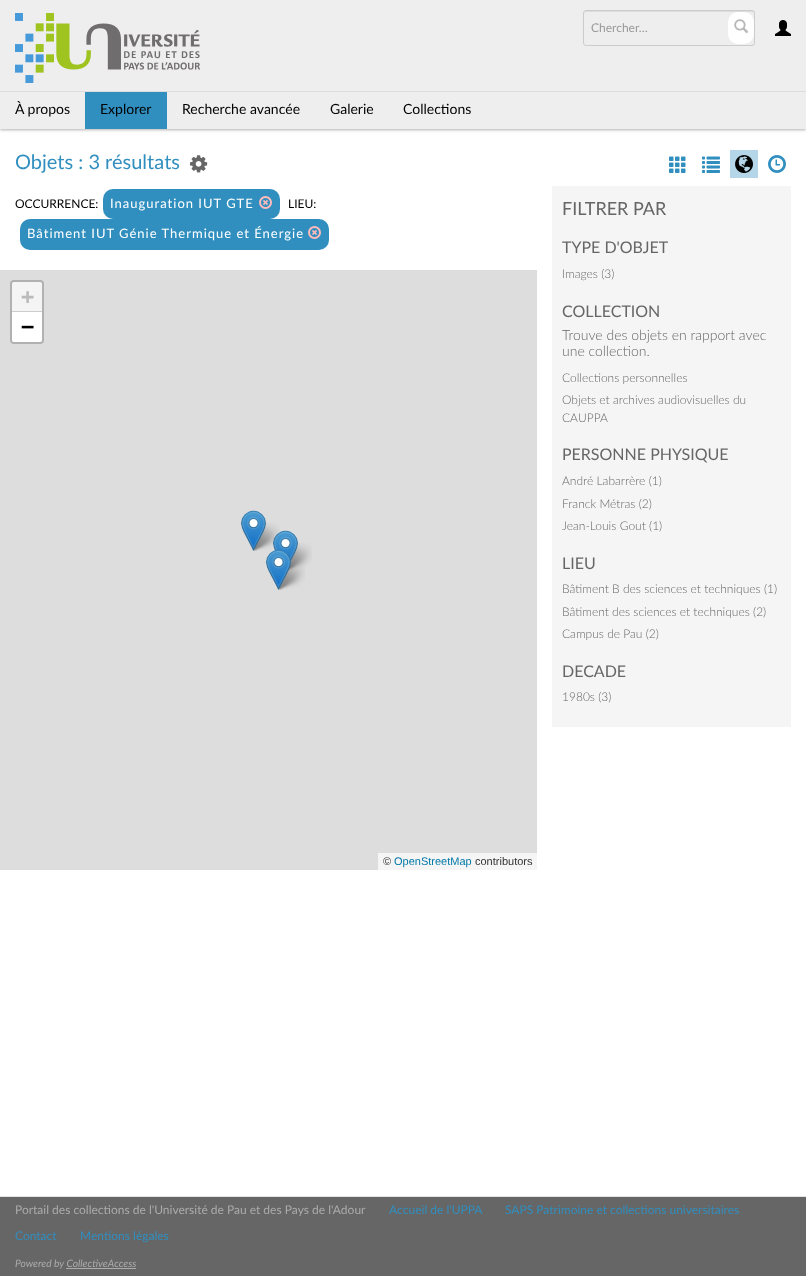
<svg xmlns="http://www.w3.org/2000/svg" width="806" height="1276">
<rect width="100%" height="100%" fill="#fff"/>
<rect y="1" width="806" height="129" fill="#0000004d" filter="blur(1.5px)"/>
<rect width="806" height="129" fill="#eee"/>
<image x="15" y="13" width="185" height="70" href="media/1.png"/>
<path d="M586 12h166c1 0 2 1 2 2c0-1 0-3-2-3h-166c-2 0-2 2-2 3c0-1 1-2 2-2z" fill="#dcdcdc"/>
<rect x="583.5" y="10.5" width="171" height="35" rx="2.5" fill="none" stroke="#ccc"/>
<text x="591" y="32" style="font-family:Lato;font-size:12px;fill:#999">Chercher…</text>
<rect x="728" y="12" width="26" height="32" rx="10" fill="#fff"/>
<image x="734" y="19" width="15" height="15" href="media/2.png"/>
<image x="775" y="20" width="16" height="16" href="media/3.png"/>
<rect y="91" width="806" height="1" fill="#ddd"/>
<text x="15" y="114" style="font-family:Lato;font-size:14px;fill:#000">À propos</text>
<rect x="85" y="92" width="82" height="37" fill="#318fbf"/>
<text x="100" y="114" style="font-family:Lato;font-size:14px;fill:#000">Explorer</text>
<text x="182" y="114" style="font-family:Lato;font-size:14px;fill:#000">Recherche avancée</text>
<text x="330" y="114" style="font-family:Lato;font-size:14px;fill:#000">Galerie</text>
<text x="403" y="114" style="font-family:Lato;font-size:14px;fill:#000">Collections</text>
<text x="15" y="169" style="font-family:Lato;font-size:20px;fill:#318fbf">Objets : 3 résultats</text>
<image x="190" y="155" width="18" height="18" href="media/4.png"/>
<text x="15" y="208" style="font-family:Lato;font-size:12px;fill:#000">OCCURRENCE:</text>
<rect x="103" y="189" width="177" height="30" rx="10" fill="#318fbf"/>
<text x="110" y="208" style="font-family:Lato;font-size:13px;letter-spacing:1px;fill:#fff">Inauguration IUT GTE</text>
<image x="259" y="196" width="13" height="13" href="media/5.png"/>
<text x="288" y="208" style="font-family:Lato;font-size:12px;fill:#000">LIEU:</text>
<rect x="20" y="219" width="309" height="31" rx="10" fill="#318fbf"/>
<text x="27" y="238" style="font-family:Lato;font-size:13px;letter-spacing:1px;fill:#fff">Bâtiment IUT Génie Thermique et Énergie</text>
<image x="308" y="226" width="13" height="13" href="media/5.png"/>
<rect y="270" width="537" height="600" fill="#ddd"/>
<rect x="11" y="281" width="32" height="62" rx="3" fill="none" stroke="#b1b1b1" stroke-width="2"/>
<path d="M14 282h26c1 0 2 1 2 2v28h-30v-28c0-1 1-2 2-2z" fill="#f4f4f4"/>
<rect x="12" y="311" width="30" height="1" fill="#ccc"/>
<text x="21" y="304" style="font-family:DejaVu Sans Mono;font-size:22px;font-weight:bold;fill:#bbb">+</text>
<path d="M12 312h30v28c0 1-1 2-2 2h-26c-1 0-2-1-2-2z" fill="#fff"/>
<text x="21" y="334" style="font-family:DejaVu Sans Mono;font-size:22px;font-weight:bold;fill:#000">−</text>
<rect x="378" y="853" width="159" height="17" fill="#f5f5f5"/>
<text x="383" y="865" style="font-family:Liberation Sans;font-size:11px;fill:#333">©</text>
<text x="394" y="865" style="font-family:Liberation Sans;font-size:11px;fill:#0078a8">OpenStreetMap</text>
<text x="475" y="865" style="font-family:Liberation Sans;font-size:11px;fill:#333">contributors</text>
<image x="251" y="523" width="29" height="28" href="media/9.png"/>
<image x="241" y="510" width="25" height="41" href="media/6.png"/>
<image x="276" y="562" width="29" height="28" href="media/9.png"/>
<image x="287" y="543" width="25" height="28" href="media/10.png"/>
<image x="273" y="530" width="25" height="32" href="media/7.png"/>
<image x="266" y="549" width="25" height="41" href="media/8.png"/>
<image x="669" y="156" width="17" height="17" href="media/11.png"/>
<image x="702" y="156" width="18" height="17" href="media/12.png"/>
<rect x="730" y="150" width="28" height="28" fill="#b4d6e8"/>
<image x="735" y="155" width="18" height="18" href="media/13.png"/>
<image x="768" y="155" width="18" height="18" href="media/14.png"/>
<rect x="552" y="186" width="239" height="541" fill="#f5f5f5"/>
<text x="562" y="215" style="font-family:Lato;font-size:18px;fill:#666">FILTRER PAR</text>
<text x="562" y="253" style="font-family:Lato;font-size:16px;fill:#666">TYPE D'OBJET</text>
<text x="562" y="278" style="font-family:Lato;font-size:12px;font-weight:300;fill:#666">Images (3)</text>
<text x="562" y="317" style="font-family:Lato;font-size:16px;fill:#666">COLLECTION</text>
<text x="562" y="340" style="font-family:Lato;font-size:14px;font-weight:300;fill:#666">Trouve des objets en rapport avec</text>
<text x="562" y="356" style="font-family:Lato;font-size:14px;font-weight:300;fill:#666">une collection.</text>
<text x="562" y="382" style="font-family:Lato;font-size:12px;font-weight:300;fill:#666">Collections personnelles</text>
<text x="562" y="404" style="font-family:Lato;font-size:12px;font-weight:300;fill:#666">Objets et archives audiovisuelles du</text>
<text x="562" y="422" style="font-family:Lato;font-size:12px;font-weight:300;fill:#666">CAUPPA</text>
<text x="562" y="460" style="font-family:Lato;font-size:16px;fill:#666">PERSONNE PHYSIQUE</text>
<text x="562" y="485" style="font-family:Lato;font-size:12px;font-weight:300;fill:#666">André Labarrère (1)</text>
<text x="562" y="508" style="font-family:Lato;font-size:12px;font-weight:300;fill:#666">Franck Métras (2)</text>
<text x="562" y="530" style="font-family:Lato;font-size:12px;font-weight:300;fill:#666">Jean-Louis Gout (1)</text>
<text x="562" y="569" style="font-family:Lato;font-size:16px;fill:#666">LIEU</text>
<text x="562" y="593" style="font-family:Lato;font-size:12px;font-weight:300;fill:#666">Bâtiment B des sciences et techniques (1)</text>
<text x="562" y="616" style="font-family:Lato;font-size:12px;font-weight:300;fill:#666">Bâtiment des sciences et techniques (2)</text>
<text x="562" y="638" style="font-family:Lato;font-size:12px;font-weight:300;fill:#666">Campus de Pau (2)</text>
<text x="562" y="677" style="font-family:Lato;font-size:16px;fill:#666">DECADE</text>
<text x="562" y="701" style="font-family:Lato;font-size:12px;font-weight:300;fill:#666">1980s (3)</text>
<rect y="1197" width="806" height="79" fill="#666"/>
<rect y="1196" width="806" height="1" fill="#e3e3e3"/>
<text x="15" y="1214" style="font-family:Lato;font-size:12px;fill:#ababab">Portail des collections de l'Université de Pau et des Pays de l'Adour</text>
<text x="389" y="1214" style="font-family:Lato;font-size:12px;fill:#318fbf">Accueil de l'UPPA</text>
<text x="505" y="1214" style="font-family:Lato;font-size:12px;fill:#318fbf">SAPS Patrimoine et collections universitaires</text>
<text x="15" y="1240" style="font-family:Lato;font-size:12px;fill:#318fbf">Contact</text>
<text x="80" y="1240" style="font-family:Lato;font-size:12px;fill:#318fbf">Mentions légales</text>
<text x="15" y="1267" style="font-family:Lato;font-size:10.25px;font-style:italic;fill:#ababab">Powered by CollectiveAccess</text>
<rect x="66" y="1268" width="70" height="1" fill="#ababab"/>
</svg>
